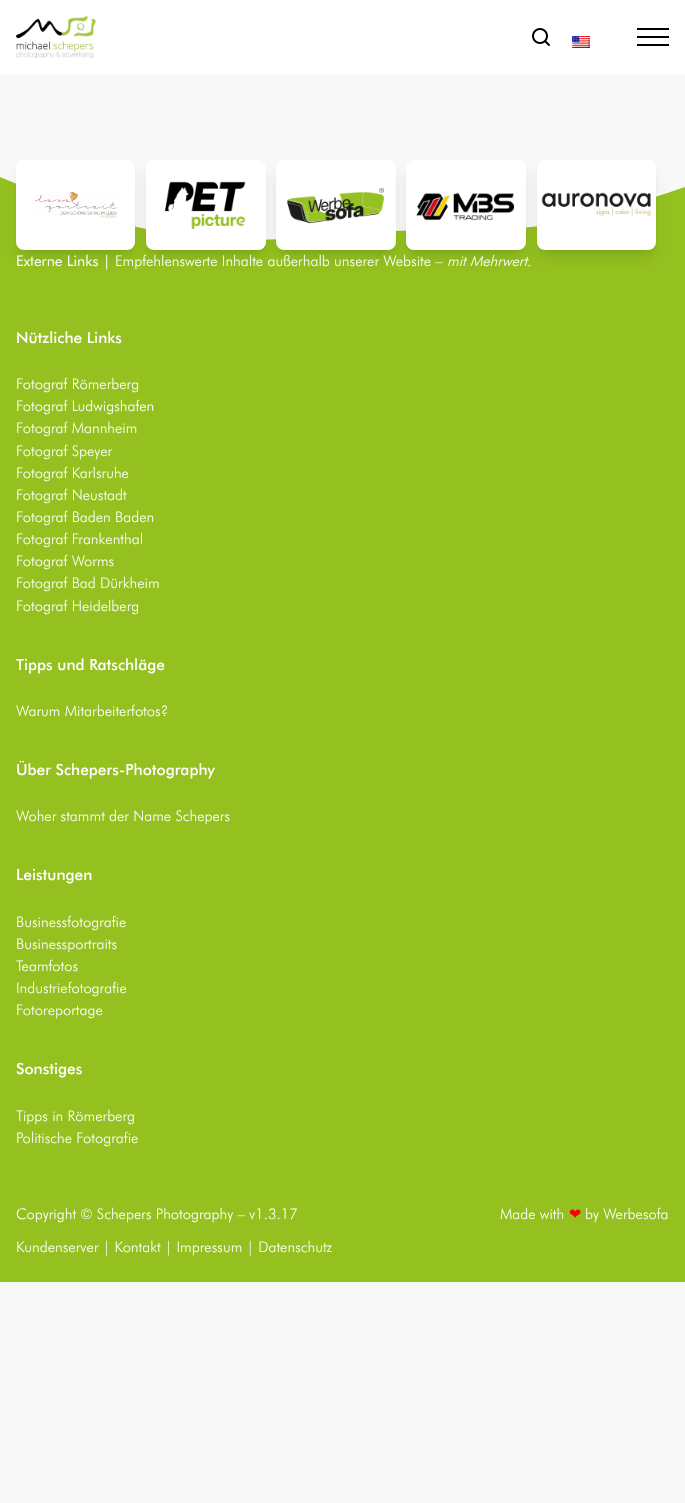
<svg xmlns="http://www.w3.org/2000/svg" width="685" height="1503">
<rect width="100%" height="100%" fill="#f8f8f8"/>
<rect width="685" height="74" fill="#fff"/>
<image x="16" y="16" width="80" height="42" href="media/1.png"/>
<image x="532" y="28" width="18" height="18" href="media/2.png"/>
<image x="572" y="36" width="18" height="12" href="media/3.png"/>
<rect x="637" y="36" width="32" height="2" fill="#000"/>
<rect x="637" y="28" width="32" height="2" fill="#000"/>
<rect x="637" y="44" width="32" height="2" fill="#000"/>
<path d="M0 177c45 19 90 38 137 50c34 8 68 12 103 13c51 1 102-7 154-9c51-3 103 1 154-6c47-7 92-23 137-38v86h-685z" fill="#94c11f"/>
<rect x="20" y="168" width="111" height="82" rx="4" fill="#0000001a" filter="blur(3px)"/>
<rect y="273" width="685" height="1009" fill="#94c11f"/>
<rect x="19" y="173" width="113" height="84" rx="5" fill="#0000001a" filter="blur(7.5px)"/>
<rect x="16" y="160" width="119" height="90" rx="8" fill="#fff"/>
<image x="35" y="191" width="82" height="27" href="media/4.png"/>
<rect x="150" y="168" width="112" height="82" rx="4" fill="#0000001a" filter="blur(3px)"/>
<rect x="149" y="173" width="114" height="84" rx="5" fill="#0000001a" filter="blur(7.5px)"/>
<rect x="146" y="160" width="120" height="90" rx="8" fill="#fff"/>
<image x="164" y="181" width="82" height="48" href="media/5.png"/>
<rect x="280" y="168" width="112" height="82" rx="4" fill="#0000001a" filter="blur(3px)"/>
<rect x="279" y="173" width="114" height="84" rx="5" fill="#0000001a" filter="blur(7.5px)"/>
<rect x="276" y="160" width="120" height="90" rx="8" fill="#fff"/>
<image x="287" y="187" width="97" height="37" href="media/6.png"/>
<rect x="410" y="168" width="112" height="82" rx="4" fill="#0000001a" filter="blur(3px)"/>
<rect x="409" y="173" width="114" height="84" rx="5" fill="#0000001a" filter="blur(7.5px)"/>
<rect x="406" y="160" width="120" height="90" rx="8" fill="#fff"/>
<image x="416" y="192" width="99" height="29" href="media/7.png"/>
<rect x="541" y="168" width="111" height="82" rx="4" fill="#0000001a" filter="blur(3px)"/>
<rect x="540" y="173" width="113" height="84" rx="5" fill="#0000001a" filter="blur(7.5px)"/>
<rect x="537" y="160" width="119" height="90" rx="8" fill="#fff"/>
<image x="541" y="192" width="110" height="24" href="media/8.png"/>
<text x="16" y="266" style="font-family:Futura;font-size:14.75px;fill:#fff">Externe Links |</text>
<text x="115" y="266" style="font-family:Futura;font-size:14.75px;font-weight:300;fill:#fff">Empfehlenswerte Inhalte außerhalb unserer Website –</text>
<text x="447" y="266" style="font-family:Futura;font-size:14.75px;font-weight:300;font-style:italic;fill:#fff">mit Mehrwert.</text>
<text x="16" y="343" style="font-family:Futura;font-size:15.5px;font-weight:500;fill:#fff">Nützliche Links</text>
<text x="16" y="389" style="font-family:Futura;font-size:14.75px;font-weight:300;fill:#fff">Fotograf Römerberg</text>
<text x="16" y="411" style="font-family:Futura;font-size:14.75px;font-weight:300;fill:#fff">Fotograf Ludwigshafen</text>
<text x="16" y="433" style="font-family:Futura;font-size:14.75px;font-weight:300;fill:#fff">Fotograf Mannheim</text>
<text x="16" y="456" style="font-family:Futura;font-size:14.75px;font-weight:300;fill:#fff">Fotograf Speyer</text>
<text x="16" y="478" style="font-family:Futura;font-size:14.75px;font-weight:300;fill:#fff">Fotograf Karlsruhe</text>
<text x="16" y="500" style="font-family:Futura;font-size:14.75px;font-weight:300;fill:#fff">Fotograf Neustadt</text>
<text x="16" y="522" style="font-family:Futura;font-size:14.75px;font-weight:300;fill:#fff">Fotograf Baden Baden</text>
<text x="16" y="544" style="font-family:Futura;font-size:14.75px;font-weight:300;fill:#fff">Fotograf Frankenthal</text>
<text x="16" y="566" style="font-family:Futura;font-size:14.75px;font-weight:300;fill:#fff">Fotograf Worms</text>
<text x="16" y="588" style="font-family:Futura;font-size:14.75px;font-weight:300;fill:#fff">Fotograf Bad Dürkheim</text>
<text x="16" y="611" style="font-family:Futura;font-size:14.75px;font-weight:300;fill:#fff">Fotograf Heidelberg</text>
<text x="16" y="670" style="font-family:Futura;font-size:15.5px;font-weight:500;fill:#fff">Tipps und Ratschläge</text>
<text x="16" y="716" style="font-family:Futura;font-size:14.75px;font-weight:300;fill:#fff">Warum Mitarbeiterfotos?</text>
<text x="16" y="775" style="font-family:Futura;font-size:15.5px;font-weight:500;fill:#fff">Über Schepers-Photography</text>
<text x="16" y="821" style="font-family:Futura;font-size:14.75px;font-weight:300;fill:#fff">Woher stammt der Name Schepers</text>
<text x="16" y="880" style="font-family:Futura;font-size:15.5px;font-weight:500;fill:#fff">Leistungen</text>
<text x="16" y="927" style="font-family:Futura;font-size:14.75px;font-weight:300;fill:#fff">Businessfotografie</text>
<text x="16" y="949" style="font-family:Futura;font-size:14.75px;font-weight:300;fill:#fff">Businessportraits</text>
<text x="16" y="971" style="font-family:Futura;font-size:14.75px;font-weight:300;fill:#fff">Teamfotos</text>
<text x="16" y="993" style="font-family:Futura;font-size:14.75px;font-weight:300;fill:#fff">Industriefotografie</text>
<text x="16" y="1015" style="font-family:Futura;font-size:14.75px;font-weight:300;fill:#fff">Fotoreportage</text>
<text x="16" y="1074" style="font-family:Futura;font-size:15.5px;font-weight:500;fill:#fff">Sonstiges</text>
<text x="16" y="1121" style="font-family:Futura;font-size:14.75px;font-weight:300;fill:#fff">Tipps in Römerberg</text>
<text x="16" y="1143" style="font-family:Futura;font-size:14.75px;font-weight:300;fill:#fff">Politische Fotografie</text>
<text x="16" y="1219" style="font-family:Futura;font-size:14.75px;font-weight:300;fill:#fff">Copyright © Schepers Photography – v1.3.17</text>
<text x="500" y="1219" style="font-family:Futura;font-size:14.75px;font-weight:300;fill:#fff">Made with</text>
<text x="569" y="1219" style="font-family:DejaVu Sans;font-size:14.75px;fill:#f00">❤</text>
<text x="585" y="1219" style="font-family:Futura;font-size:14.75px;font-weight:300;fill:#fff">by Werbesofa</text>
<text x="16" y="1252" style="font-family:Futura;font-size:14.75px;font-weight:300;fill:#fff">Kundenserver | Kontakt | Impressum | Datenschutz</text>
</svg>
